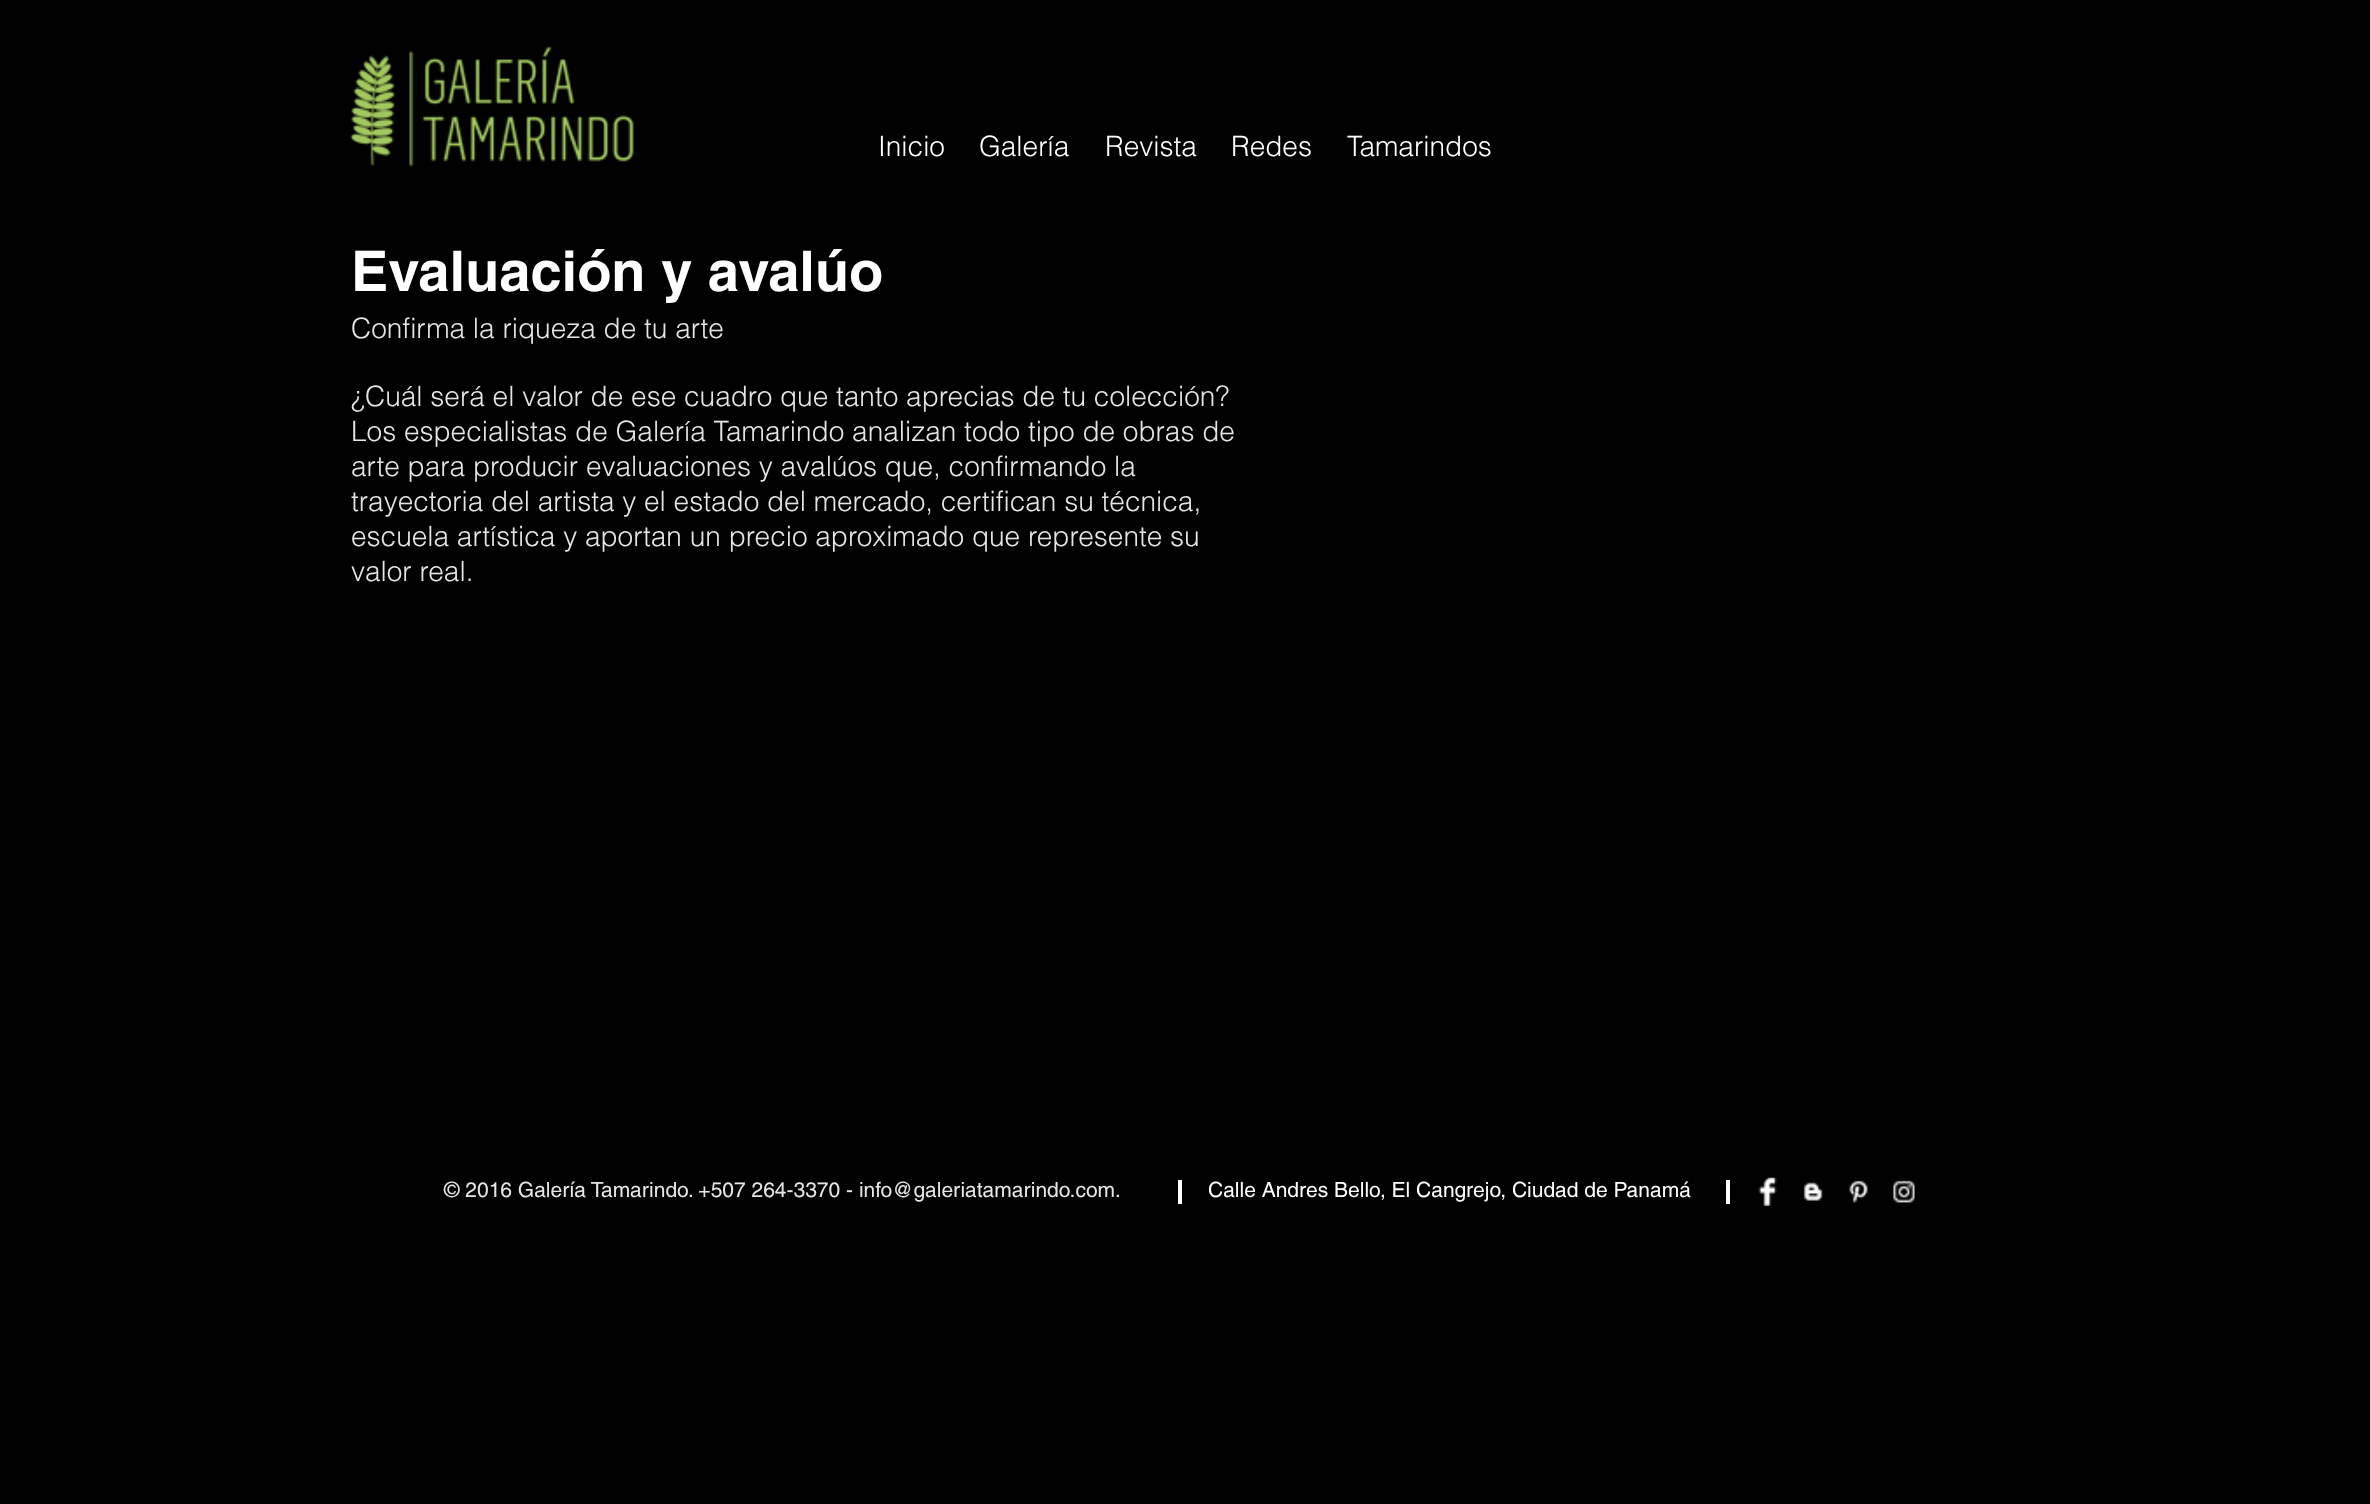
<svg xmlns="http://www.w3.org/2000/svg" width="2370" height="1504">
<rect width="100%" height="100%" fill="#000"/>
<image x="349" y="46" width="285" height="121" href="media/1.png"/>
<text x="878" y="156" style="font-family:helvetica;font-size:28px;font-weight:300;fill:#fff">Inicio</text>
<text x="979" y="156" style="font-family:helvetica;font-size:28px;font-weight:300;fill:#fff">Galería</text>
<text x="1105" y="156" style="font-family:helvetica;font-size:28px;font-weight:300;fill:#fff">Revista</text>
<text x="1231" y="156" style="font-family:helvetica;font-size:28px;font-weight:300;fill:#fff">Redes</text>
<text x="1347" y="156" style="font-family:helvetica;font-size:28px;font-weight:300;fill:#fff">Tamarindos</text>
<text x="351" y="291" style="font-family:helvetica;font-size:56px;font-weight:bold;fill:#fff">Evaluación y avalúo</text>
<text x="351" y="338" style="font-family:helvetica;font-size:28px;font-weight:300;fill:#e6e6e6">Confirma la riqueza de tu arte</text>
<text x="351" y="406" style="font-family:helvetica;font-size:28px;font-weight:300;fill:#e6e6e6">¿Cuál será el valor de ese cuadro que tanto aprecias de tu colección?</text>
<text x="351" y="441" style="font-family:helvetica;font-size:28px;font-weight:300;fill:#e6e6e6">Los especialistas de Galería Tamarindo analizan todo tipo de obras de</text>
<text x="351" y="476" style="font-family:helvetica;font-size:28px;font-weight:300;fill:#e6e6e6">arte para producir evaluaciones y avalúos que, confirmando la</text>
<text x="351" y="511" style="font-family:helvetica;font-size:28px;font-weight:300;fill:#e6e6e6">trayectoria del artista y el estado del mercado, certifican su técnica,</text>
<text x="351" y="546" style="font-family:helvetica;font-size:28px;font-weight:300;fill:#e6e6e6">escuela artística y aportan un precio aproximado que represente su</text>
<text x="351" y="581" style="font-family:helvetica;font-size:28px;font-weight:300;fill:#e6e6e6">valor real.</text>
<text x="444" y="1197" style="font-family:helvetica;font-size:21px;fill:#e6e6e6">© 2016 Galería Tamarindo. +507 264-3370 - info@galeriatamarindo.com.</text>
<rect x="1178" y="1180" width="4" height="24" fill="#fff"/>
<text x="1208" y="1197" style="font-family:helvetica;font-size:21px;fill:#fff">Calle Andres Bello, El Cangrejo, Ciudad de Panamá</text>
<rect x="1726" y="1180" width="4" height="24" fill="#fff"/>
<image x="1758" y="1177" width="19" height="29" href="media/2.png"/>
<image x="1803" y="1182" width="20" height="19" href="media/3.png"/>
<image x="1849" y="1180" width="19" height="23" href="media/4.png"/>
<image x="1892" y="1179" width="23" height="24" href="media/5.png"/>
</svg>
